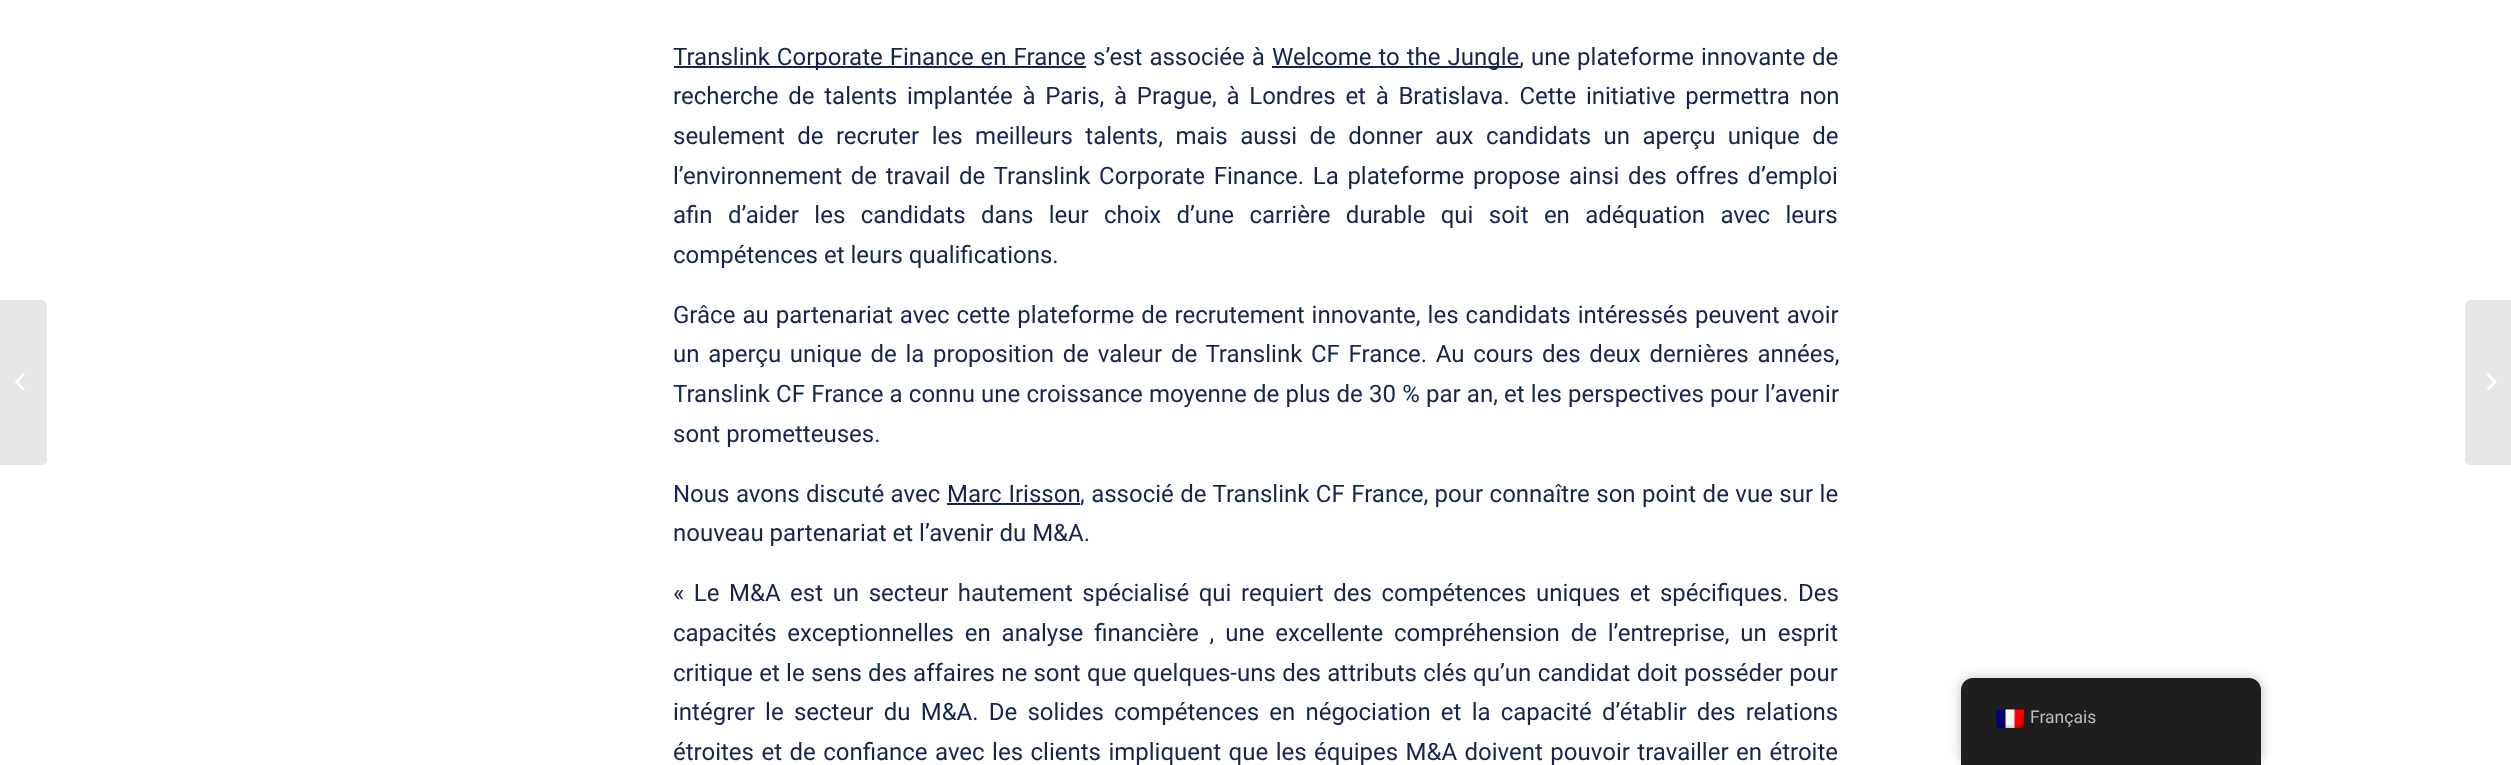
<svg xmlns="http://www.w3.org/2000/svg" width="2511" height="765">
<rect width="100%" height="100%" fill="#fff"/>
<path d="M0 300h41c3.5 0 6 2.5 6 6v153c0 3.5-2.5 6-6 6h-41z" fill="#e6e6e6"/>
<image x="15" y="373" width="10" height="17" href="media/1.png"/>
<rect x="674" y="66" width="412" height="2" fill="#17254e"/>
<text x="673" y="65" word-spacing="1" style="font-family:Roboto;font-size:24px;fill:#17254e">Translink Corporate Finance en France</text>
<text x="1093" y="65" word-spacing="1" style="font-family:Roboto;font-size:24px;fill:#17254e">s’est associée à</text>
<rect x="1272" y="66" width="248" height="2" fill="#17254e"/>
<text x="1272" y="65" word-spacing="1" style="font-family:Roboto;font-size:24px;fill:#17254e">Welcome to the Jungle, une plateforme innovante de</text>
<text x="673" y="104" word-spacing="3.75" style="font-family:Roboto;font-size:24px;fill:#17254e">recherche de talents implantée à Paris, à Prague, à Londres et à Bratislava. Cette initiative permettra non</text>
<text x="673" y="144" word-spacing="6.5" style="font-family:Roboto;font-size:24px;fill:#17254e">seulement de recruter les meilleurs talents, mais aussi de donner aux candidats un aperçu unique de</text>
<text x="673" y="184" word-spacing="2.75" style="font-family:Roboto;font-size:24px;fill:#17254e">l’environnement de travail de Translink Corporate Finance. La plateforme propose ainsi des offres d’emploi</text>
<text x="673" y="223" word-spacing="9.4" style="font-family:Roboto;font-size:24px;fill:#17254e">afin d’aider les candidats dans leur choix d’une carrière durable qui soit en adéquation avec leurs</text>
<text x="673" y="263" style="font-family:Roboto;font-size:24px;fill:#17254e">compétences et leurs qualifications.</text>
<text x="673" y="323" word-spacing="1.1" style="font-family:Roboto;font-size:24px;fill:#17254e">Grâce au partenariat avec cette plateforme de recrutement innovante, les candidats intéressés peuvent avoir</text>
<text x="673" y="362" word-spacing="2.75" style="font-family:Roboto;font-size:24px;fill:#17254e">un aperçu unique de la proposition de valeur de Translink CF France. Au cours des deux dernières années,</text>
<text x="673" y="402" word-spacing="0.25" style="font-family:Roboto;font-size:24px;fill:#17254e">Translink CF France a connu une croissance moyenne de plus de 30 % par an, et les perspectives pour l’avenir</text>
<text x="673" y="442" style="font-family:Roboto;font-size:24px;fill:#17254e">sont prometteuses.</text>
<text x="673" y="502" word-spacing="0.5" style="font-family:Roboto;font-size:24px;fill:#17254e">Nous avons discuté avec</text>
<text x="947" y="502" word-spacing="1" style="font-family:Roboto;font-size:24px;fill:#17254e">Marc Irisson</text>
<rect x="947" y="503" width="133" height="2" fill="#17254e"/>
<text x="1080" y="502" word-spacing="0.5" style="font-family:Roboto;font-size:24px;fill:#17254e">, associé de Translink CF France, pour connaître son point de vue sur le</text>
<text x="673" y="541" style="font-family:Roboto;font-size:24px;fill:#17254e">nouveau partenariat et l’avenir du M&amp;A.</text>
<text x="673" y="601" word-spacing="3.6" style="font-family:Roboto;font-size:24px;fill:#17254e">« Le M&amp;A est un secteur hautement spécialisé qui requiert des compétences uniques et spécifiques. Des</text>
<text x="673" y="641" word-spacing="4.9" style="font-family:Roboto;font-size:24px;fill:#17254e">capacités exceptionnelles en analyse financière , une excellente compréhension de l’entreprise, un esprit</text>
<text x="673" y="681" word-spacing="0.4" style="font-family:Roboto;font-size:24px;fill:#17254e">critique et le sens des affaires ne sont que quelques-uns des attributs clés qu’un candidat doit posséder pour</text>
<text x="673" y="720" word-spacing="4.25" style="font-family:Roboto;font-size:24px;fill:#17254e">intégrer le secteur du M&amp;A. De solides compétences en négociation et la capacité d’établir des relations</text>
<text x="673" y="760" word-spacing="1.5" style="font-family:Roboto;font-size:24px;fill:#17254e">étroites et de confiance avec les clients impliquent que les équipes M&amp;A doivent pouvoir travailler en étroite</text>
<path d="M2471 300h40v165h-40c-3.5 0-6-2.5-6-6v-153c0-3.5 2.5-6 6-6z" fill="#e6e6e6"/>
<image x="2487" y="373" width="10" height="17" href="media/2.png"/>
<rect x="1961" y="678" width="300" height="87" rx="12" fill="#00000040" filter="blur(6px)"/>
<path d="M1973 678h276c6.5 0 12 5.5 12 12v75h-300v-75c0-6.5 5.5-12 12-12z" fill="#1e1e1e"/>
<image x="1996" y="709" width="28" height="19" href="media/3.png"/>
<text x="2030" y="723" style="font-family:Roboto;font-size:17.5px;fill:#bdbdbd">Français</text>
</svg>
